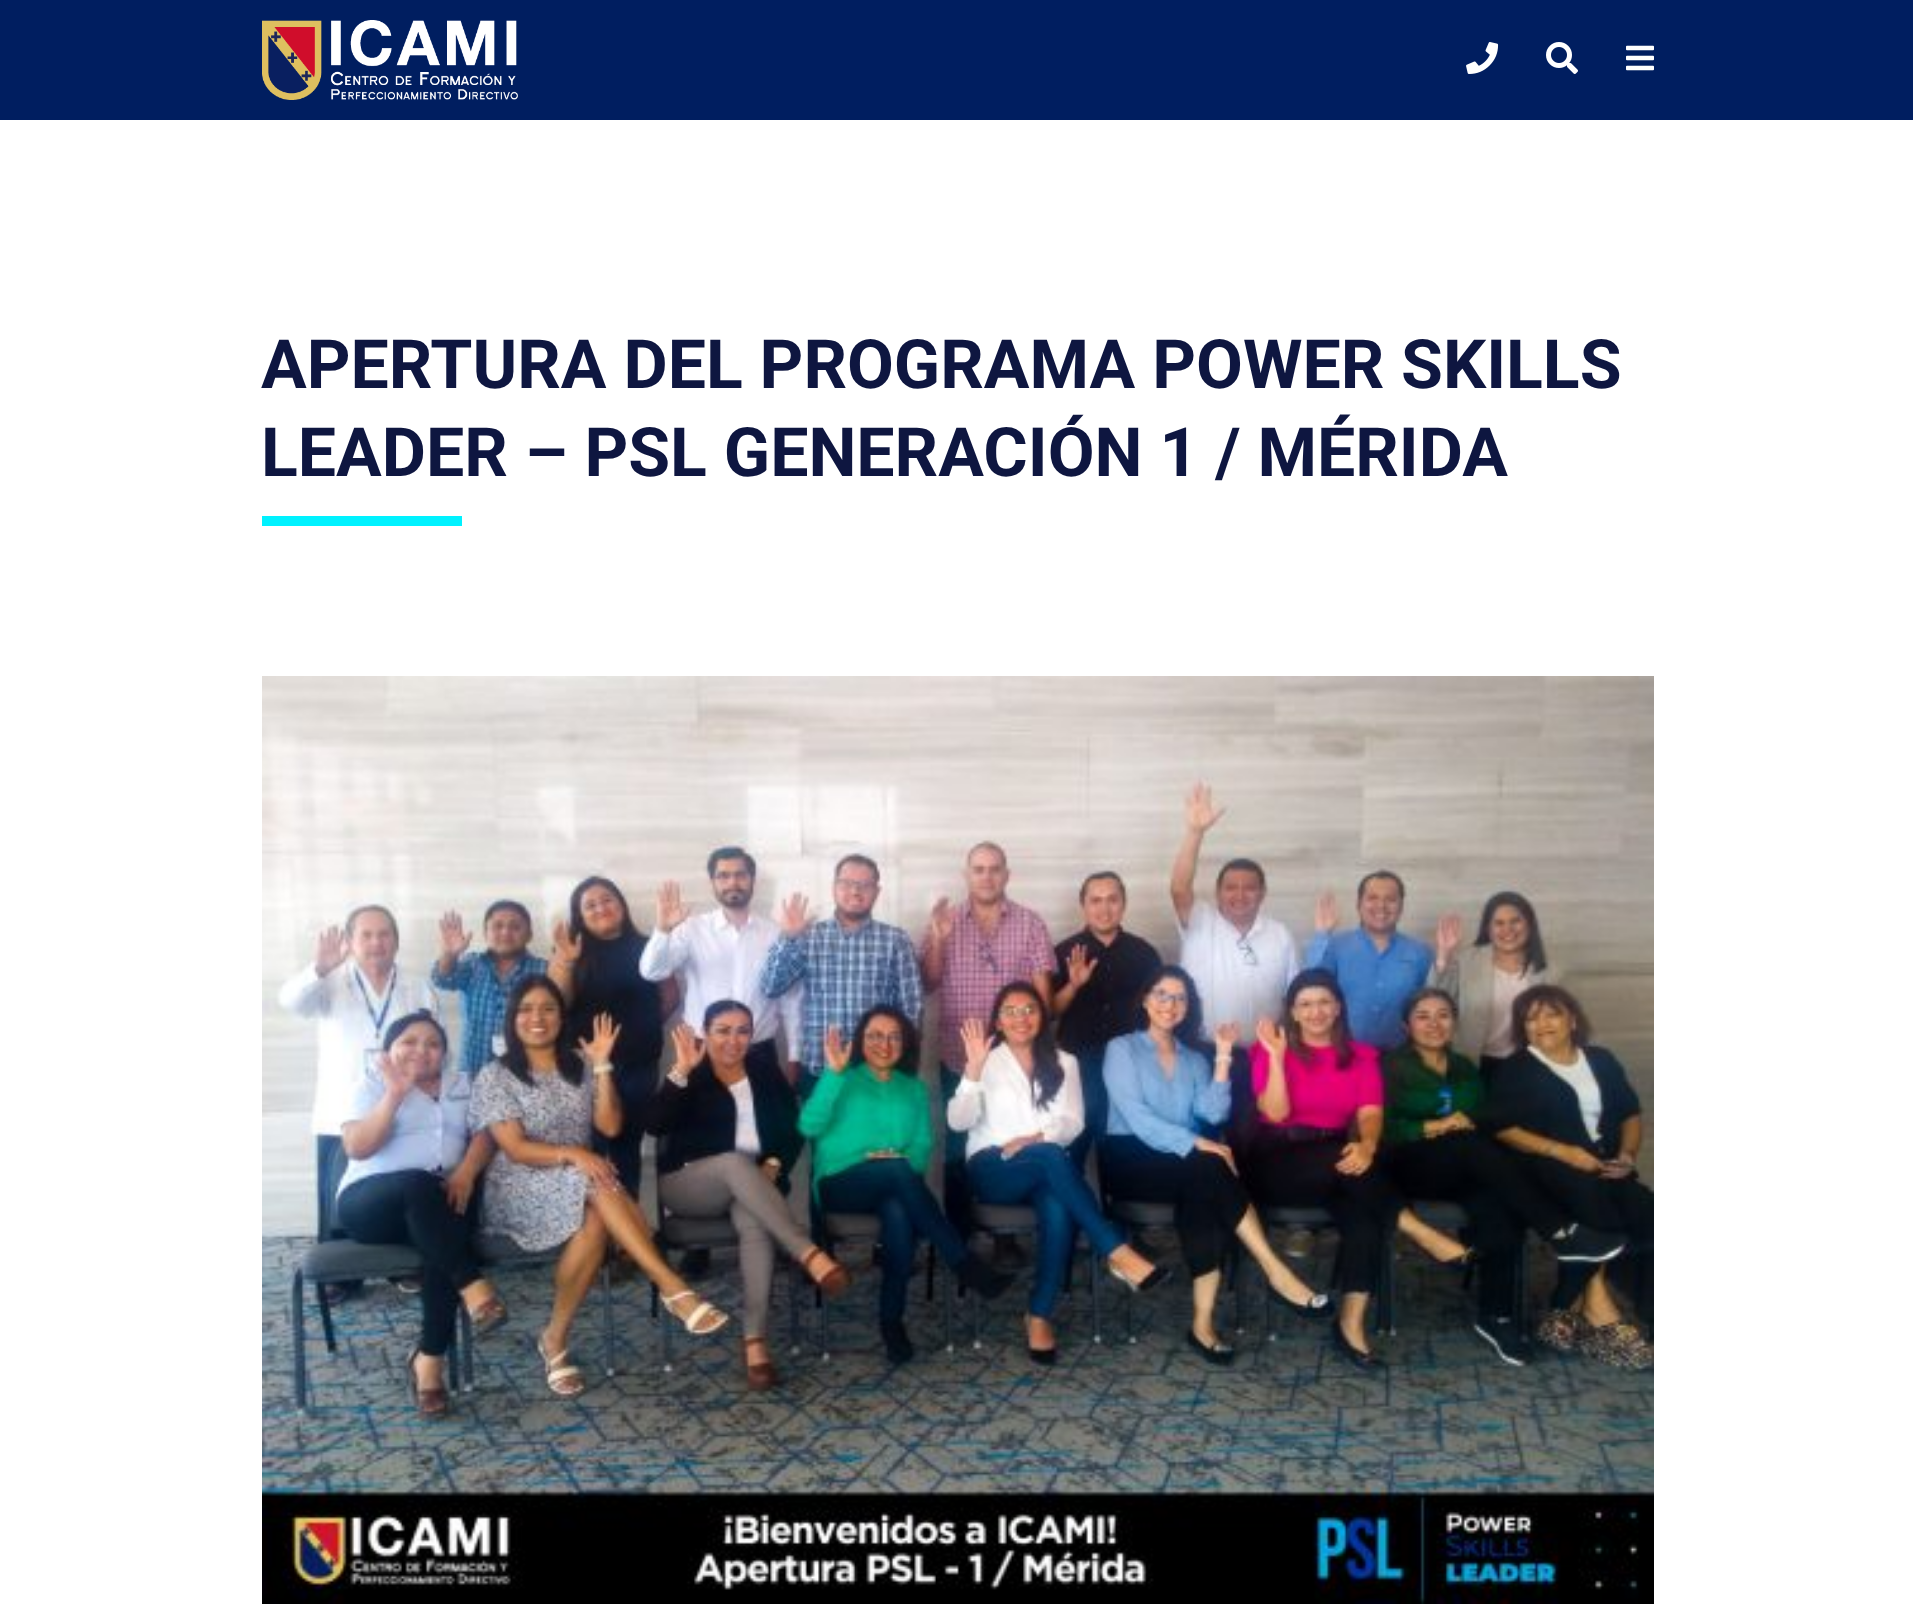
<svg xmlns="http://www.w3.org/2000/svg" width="1913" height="1614">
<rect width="100%" height="100%" fill="#fff"/>
<rect width="1913" height="120" fill="#001e60"/>
<image x="262" y="20" width="256" height="80" href="media/1.png"/>
<image x="1466" y="42" width="33" height="32" href="media/2.png"/>
<image x="1546" y="42" width="32" height="32" href="media/3.png"/>
<image x="1626" y="45" width="28" height="26" href="media/4.png"/>
<text x="261" y="388" style="font-family:Roboto;font-size:68px;font-weight:bold;fill:#0e1640">APERTURA DEL PROGRAMA POWER SKILLS</text>
<text x="261" y="476" style="font-family:Roboto;font-size:68px;font-weight:bold;fill:#0e1640">LEADER – PSL GENERACIÓN 1 / MÉRIDA</text>
<rect x="262" y="516" width="200" height="10" fill="#00f2ff"/>
<image x="262" y="676" width="1392" height="928" href="media/5.png"/>
</svg>
